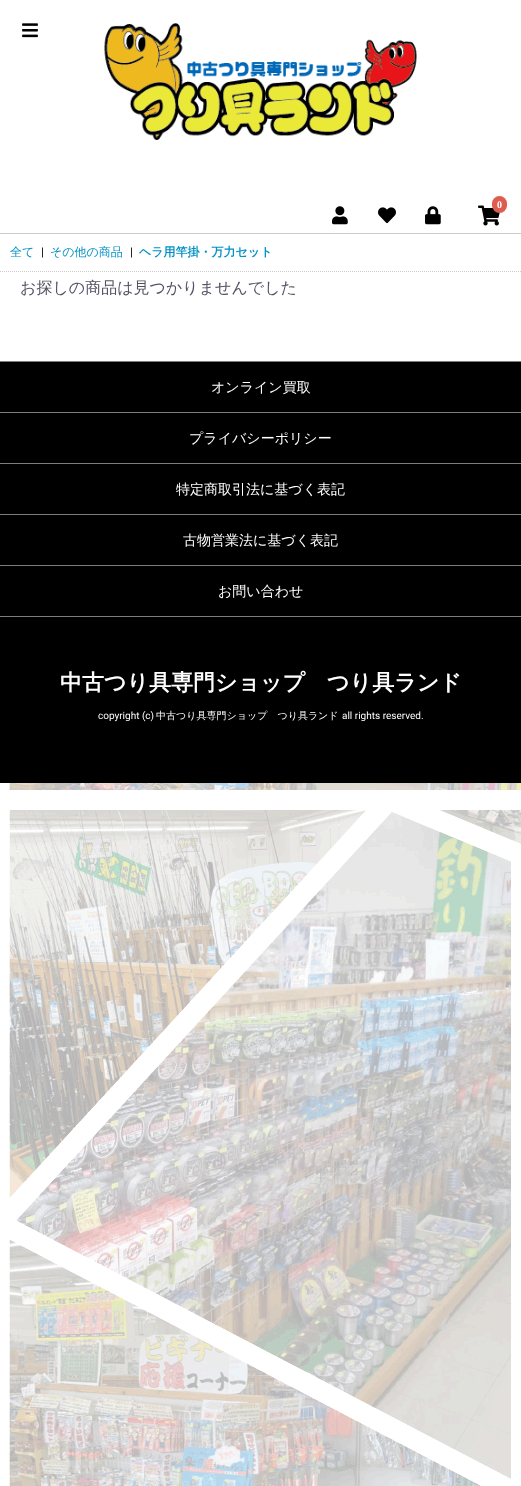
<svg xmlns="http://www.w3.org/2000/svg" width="521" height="1486">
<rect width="100%" height="100%" fill="#fff"/>
<image x="9" y="783" width="512" height="703" href="media/1.png"/>
<image x="104" y="23" width="313" height="117" href="media/2.png"/>
<image x="22" y="23" width="16" height="15" href="media/3.png"/>
<image x="478" y="205" width="22" height="21" href="media/4.png"/>
<rect x="492" y="196" width="15" height="17" rx="7.5" fill="#de5d50"/>
<text x="497" y="208" style="font-family:Liberation Serif;font-size:10px;font-weight:bold;fill:#fff">0</text>
<image x="332" y="206" width="16" height="19" href="media/5.png"/>
<image x="378" y="207" width="18" height="17" href="media/6.png"/>
<image x="425" y="206" width="16" height="19" href="media/7.png"/>
<rect y="233" width="521" height="1" fill="#ccc"/>
<path d="M0 271.5h521" fill="none" stroke="#ccc" stroke-dasharray="1 1"/>
<text x="10" y="256" style="font-family:WenQuanYi Zen Hei;font-size:12px;font-weight:500;fill:#0092c4">全て</text>
<text x="41" y="256" style="font-family:Roboto;font-size:12px;fill:#000">|</text>
<text x="50" y="256" style="font-family:WenQuanYi Zen Hei;font-size:12px;font-weight:500;fill:#0092c4">その他の商品</text>
<text x="130" y="256" style="font-family:Roboto;font-size:12px;fill:#000">|</text>
<text x="139" y="256" style="font-family:WenQuanYi Zen Hei;font-size:12px;font-weight:bold;fill:#0092c4">ヘラ用竿掛・万力セット</text>
<text x="20" y="293" style="font-family:WenQuanYi Zen Hei;font-size:16px;font-weight:500;fill:#525263">お探しの商品は見つかりませんでした</text>
<rect y="362" width="521" height="421" fill="#000"/>
<rect y="361" width="521" height="1" fill="#7d7d7d"/>
<rect y="412" width="521" height="1" fill="#7d7d7d"/>
<text x="211" y="392" style="font-family:WenQuanYi Zen Hei;font-size:14px;font-weight:500;fill:#fff">オンライン買取</text>
<rect y="463" width="521" height="1" fill="#7d7d7d"/>
<text x="189" y="443" style="font-family:WenQuanYi Zen Hei;font-size:14px;font-weight:500;fill:#fff">プライバシーポリシー</text>
<rect y="514" width="521" height="1" fill="#7d7d7d"/>
<text x="176" y="494" style="font-family:WenQuanYi Zen Hei;font-size:14px;font-weight:500;fill:#fff">特定商取引法に基づく表記</text>
<rect y="565" width="521" height="1" fill="#7d7d7d"/>
<text x="183" y="545" style="font-family:WenQuanYi Zen Hei;font-size:14px;font-weight:500;fill:#fff">古物営業法に基づく表記</text>
<rect y="616" width="521" height="1" fill="#7d7d7d"/>
<text x="218" y="596" style="font-family:WenQuanYi Zen Hei;font-size:14px;font-weight:500;fill:#fff">お問い合わせ</text>
<text x="60" y="690" style="font-family:WenQuanYi Zen Hei;font-size:22px;font-weight:bold;fill:#fff">中古つり具専門ショップ　つり具ランド</text>
<text x="98" y="719" style="font-family:Roboto;font-size:10px;fill:#fff">copyright (c)</text>
<text x="156" y="719" style="font-family:WenQuanYi Zen Hei;font-size:10px;font-weight:500;fill:#fff">中古つり具専門ショップ　つり具ランド</text>
<text x="342" y="719" style="font-family:Roboto;font-size:10px;fill:#fff">all rights reserved.</text>
</svg>
